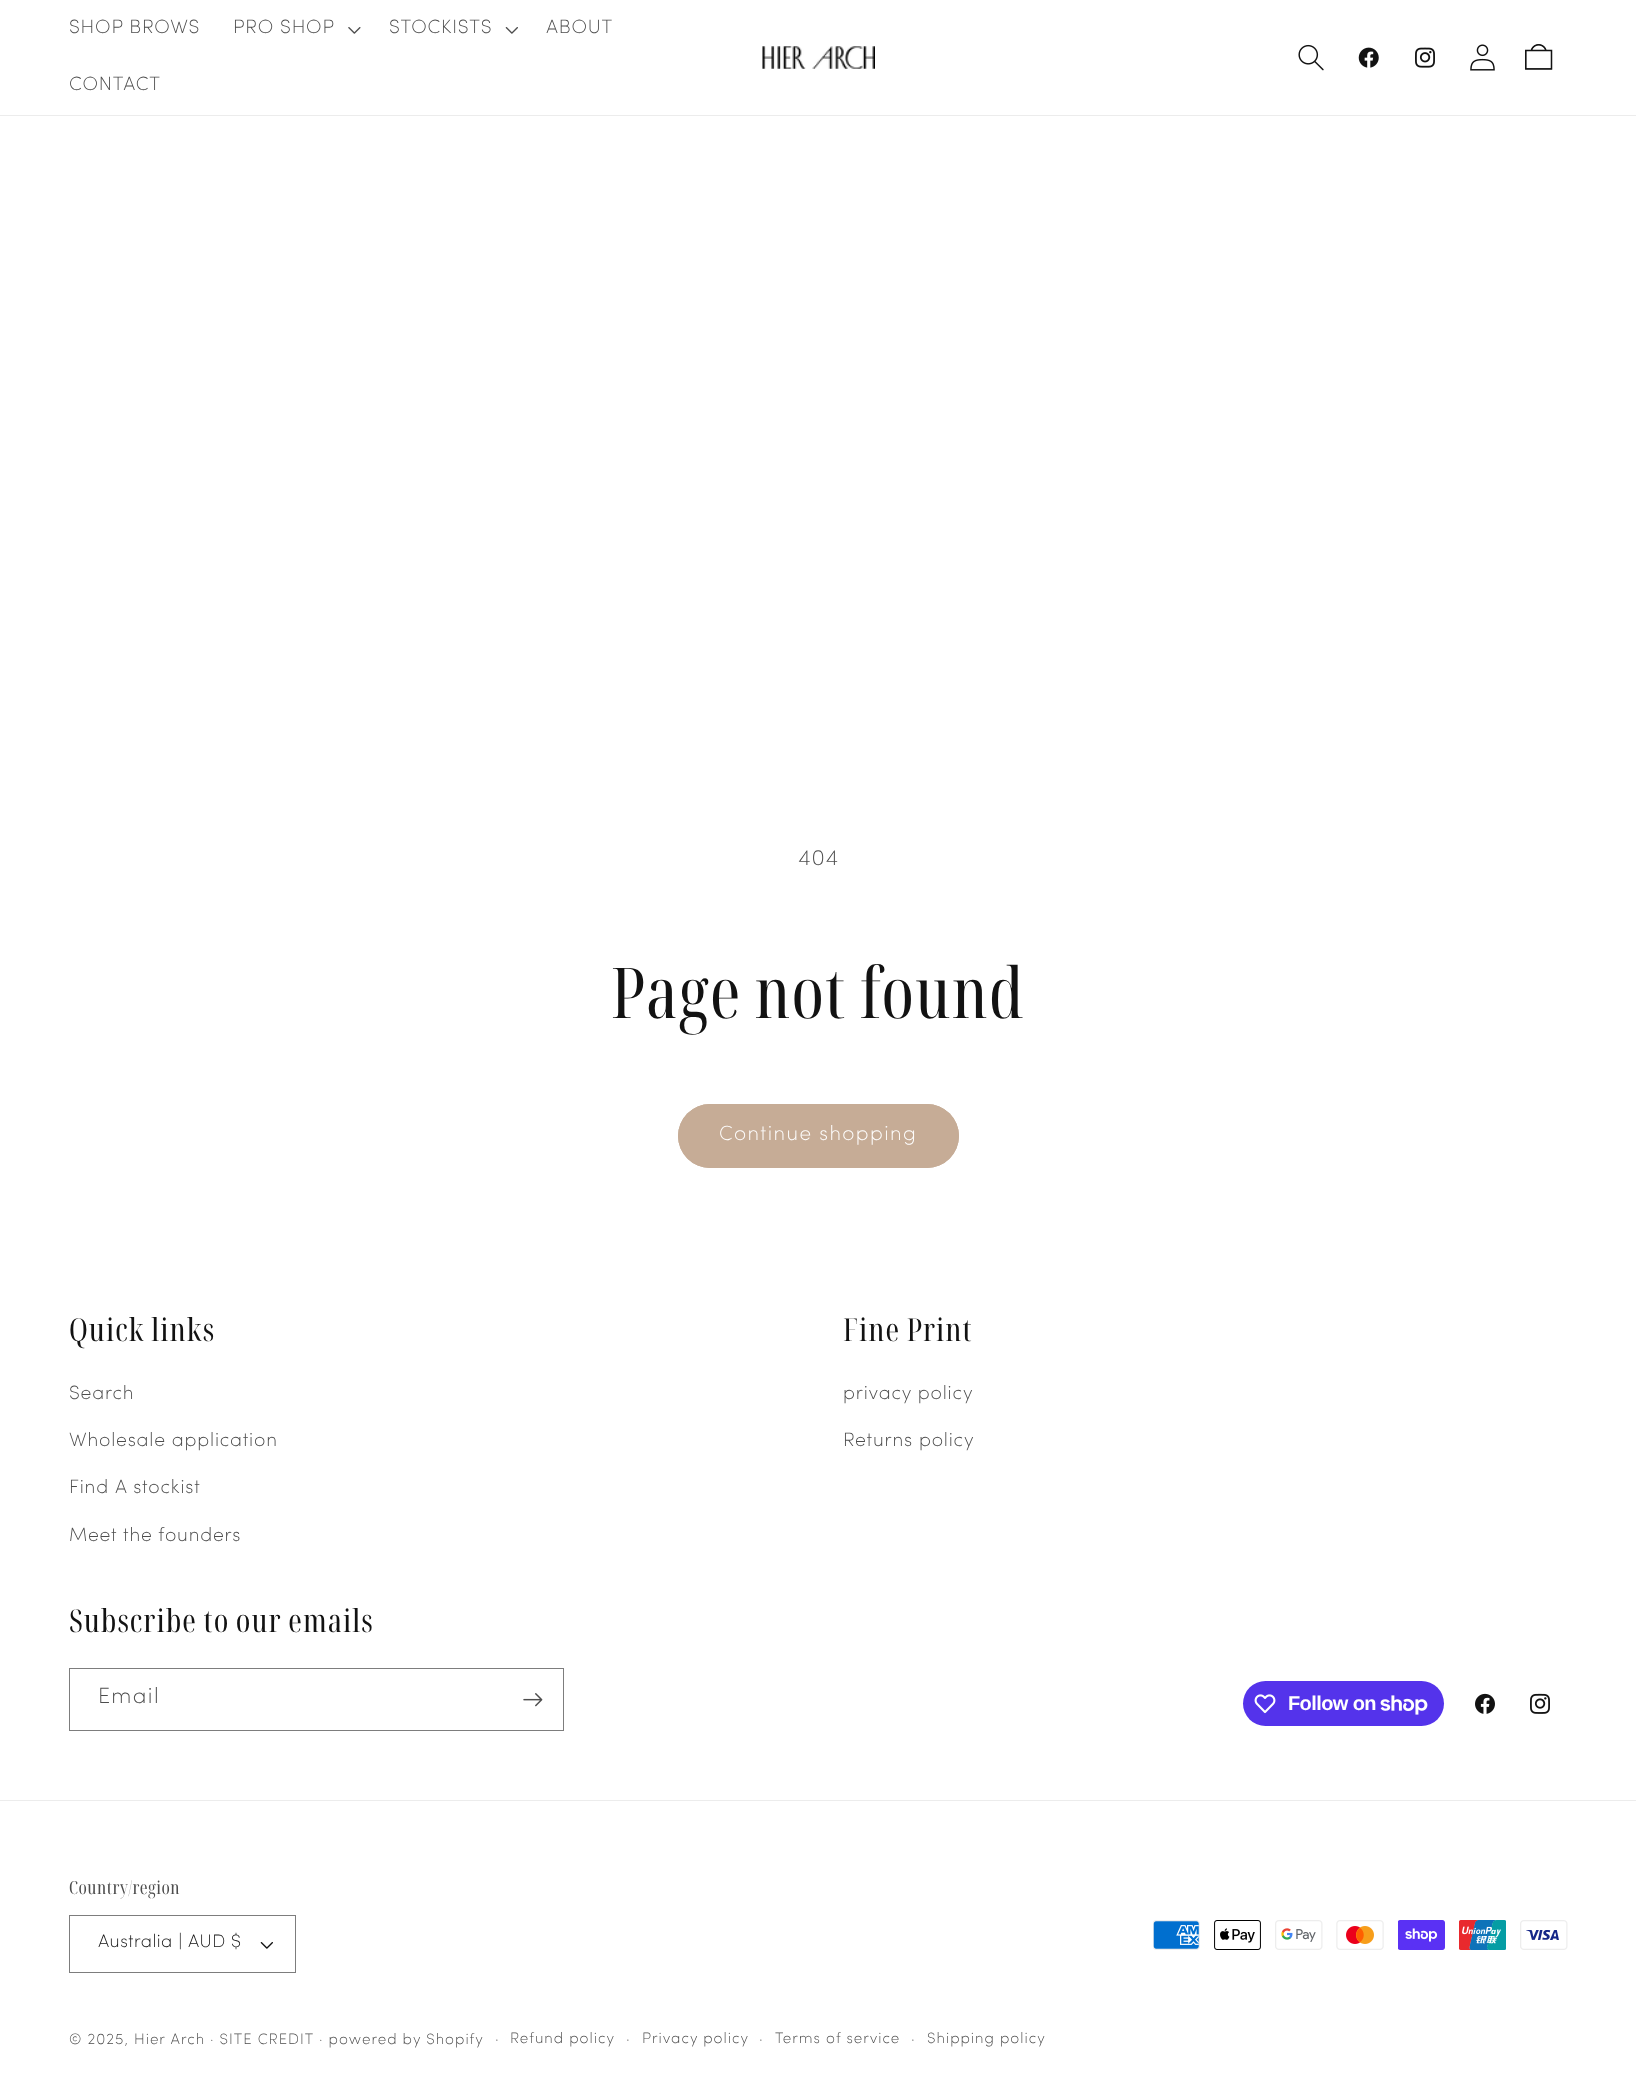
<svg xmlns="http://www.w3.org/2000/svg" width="1636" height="2098">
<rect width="100%" height="100%" fill="#fff"/>
<rect y="115" width="1636" height="1" fill="#ececec"/>
<text x="69" y="33" style="font-family:Sofia;font-size:19.25px;font-weight:200;letter-spacing:0.8px;fill:#4d4d4d">SHOP BROWS</text>
<text x="233" y="33" style="font-family:Sofia;font-size:19.25px;font-weight:200;letter-spacing:0.8px;fill:#4d4d4d">PRO SHOP</text>
<image x="348" y="27" width="13" height="7" href="media/1.png"/>
<text x="389" y="33" style="font-family:Sofia;font-size:19.25px;font-weight:200;letter-spacing:0.8px;fill:#4d4d4d">STOCKISTS</text>
<image x="505" y="27" width="13" height="7" href="media/2.png"/>
<text x="546" y="33" style="font-family:Sofia;font-size:19.25px;font-weight:200;letter-spacing:0.8px;fill:#4d4d4d">ABOUT</text>
<text x="69" y="90" style="font-family:Sofia;font-size:19.25px;font-weight:200;letter-spacing:0.8px;fill:#4d4d4d">CONTACT</text>
<image x="762" y="46" width="113" height="23" href="media/3.png"/>
<image x="1298" y="44" width="26" height="27" href="media/4.png"/>
<image x="1358" y="47" width="21" height="21" href="media/5.png"/>
<image x="1415" y="47" width="20" height="21" href="media/6.png"/>
<image x="1470" y="44" width="25" height="27" href="media/7.png"/>
<image x="1525" y="44" width="28" height="26" href="media/8.png"/>
<text x="798" y="865" style="font-family:Sofia;font-size:22px;font-weight:200;letter-spacing:0.8px;fill:#4d4d4d">404</text>
<text x="611" y="1018" style="font-family:Noto Serif Display;font-size:70px;letter-spacing:1.05px;fill:#121212">Page not found</text>
<rect x="678" y="1104" width="281" height="64" rx="32" fill="#c6ac96"/>
<rect x="678.5" y="1104.5" width="280" height="63" rx="31.5" fill="none" stroke="#c6ac96"/>
<text x="719" y="1140" style="font-family:Sofia;font-size:20.6px;font-weight:200;letter-spacing:1.4px;fill:#fff">Continue shopping</text>
<text x="69" y="1341" style="font-family:Noto Serif Display;font-size:31.5px;letter-spacing:1.05px;fill:#121212">Quick links</text>
<text x="69" y="1399" style="font-family:Sofia;font-size:19.25px;font-weight:200;letter-spacing:0.8px;fill:#4d4d4d">Search</text>
<text x="69" y="1446" style="font-family:Sofia;font-size:19.25px;font-weight:200;letter-spacing:0.8px;fill:#4d4d4d">Wholesale application</text>
<text x="69" y="1493" style="font-family:Sofia;font-size:19.25px;font-weight:200;letter-spacing:0.8px;fill:#4d4d4d">Find A stockist</text>
<text x="69" y="1541" style="font-family:Sofia;font-size:19.25px;font-weight:200;letter-spacing:0.8px;fill:#4d4d4d">Meet the founders</text>
<text x="843" y="1341" style="font-family:Noto Serif Display;font-size:31.5px;letter-spacing:1.05px;fill:#121212">Fine Print</text>
<text x="843" y="1399" style="font-family:Sofia;font-size:19.25px;font-weight:200;letter-spacing:0.8px;fill:#4d4d4d">privacy policy</text>
<text x="843" y="1446" style="font-family:Sofia;font-size:19.25px;font-weight:200;letter-spacing:0.8px;fill:#4d4d4d">Returns policy</text>
<text x="69" y="1632" style="font-family:Noto Serif Display;font-size:31.5px;letter-spacing:1.05px;fill:#121212">Subscribe to our emails</text>
<rect x="69.5" y="1668.5" width="494" height="62" fill="none" stroke="#7d7d7d"/>
<text x="98" y="1703" style="font-family:Sofia;font-size:22px;font-weight:200;letter-spacing:1.4px;fill:#4d4d4d">Email</text>
<image x="523" y="1693" width="20" height="14" href="media/9.png"/>
<rect x="1243" y="1681" width="201" height="45" rx="22.5" fill="#5433eb"/>
<image x="1254" y="1694" width="22" height="20" href="media/10.png"/>
<text x="1288" y="1710" style="font-family:Liberation Sans;font-size:20px;font-weight:bold;letter-spacing:-0.6px;fill:#fff">Follow on</text>
<image x="1380" y="1695" width="48" height="20" href="media/11.png"/>
<image x="1475" y="1693" width="20" height="21" href="media/12.png"/>
<image x="1530" y="1693" width="20" height="21" href="media/13.png"/>
<rect y="1800" width="1636" height="1" fill="#ececec"/>
<text x="69" y="1894" style="font-family:Noto Serif Display;font-size:18px;letter-spacing:0.5px;fill:#4d4d4d">Country/region</text>
<image x="260" y="1942" width="13" height="7" href="media/14.png"/>
<rect x="69.5" y="1915.5" width="226" height="57" fill="none" stroke="#7d7d7d"/>
<text x="98" y="1947" style="font-family:Sofia;font-size:18px;font-weight:200;letter-spacing:0.5px;fill:#121212">Australia | AUD $</text>
<image x="1153" y="1920" width="47" height="30" href="media/15.png"/>
<image x="1214" y="1920" width="47" height="30" href="media/16.png"/>
<image x="1275" y="1920" width="48" height="30" href="media/17.png"/>
<image x="1336" y="1920" width="48" height="30" href="media/18.png"/>
<image x="1398" y="1920" width="47" height="30" href="media/19.png"/>
<image x="1459" y="1920" width="47" height="30" href="media/20.png"/>
<image x="1520" y="1920" width="48" height="30" href="media/21.png"/>
<text x="69" y="2044" style="font-family:Sofia;font-size:15.1px;font-weight:200;letter-spacing:1px;fill:#4d4d4d">© 2025, Hier Arch</text>
<text x="210" y="2044" style="font-family:Sofia;font-size:15.1px;font-weight:200;letter-spacing:1px;fill:#4d4d4d">· SITE CREDIT</text>
<text x="319" y="2044" style="font-family:Sofia;font-size:15.1px;font-weight:200;letter-spacing:1px;fill:#4d4d4d">· powered by Shopify</text>
<text x="495" y="2044" style="font-family:Sofia;font-size:16px;font-weight:200;letter-spacing:1px;fill:#4d4d4d">·</text>
<text x="510" y="2043" style="font-family:Sofia;font-size:15.1px;font-weight:200;letter-spacing:1px;fill:#4d4d4d">Refund policy</text>
<text x="626" y="2044" style="font-family:Sofia;font-size:16px;font-weight:200;letter-spacing:1px;fill:#4d4d4d">·</text>
<text x="642" y="2043" style="font-family:Sofia;font-size:15.1px;font-weight:200;letter-spacing:1px;fill:#4d4d4d">Privacy policy</text>
<text x="759" y="2044" style="font-family:Sofia;font-size:16px;font-weight:200;letter-spacing:1px;fill:#4d4d4d">·</text>
<text x="775" y="2043" style="font-family:Sofia;font-size:15.1px;font-weight:200;letter-spacing:1px;fill:#4d4d4d">Terms of service</text>
<text x="911" y="2044" style="font-family:Sofia;font-size:16px;font-weight:200;letter-spacing:1px;fill:#4d4d4d">·</text>
<text x="927" y="2043" style="font-family:Sofia;font-size:15.1px;font-weight:200;letter-spacing:1px;fill:#4d4d4d">Shipping policy</text>
</svg>
